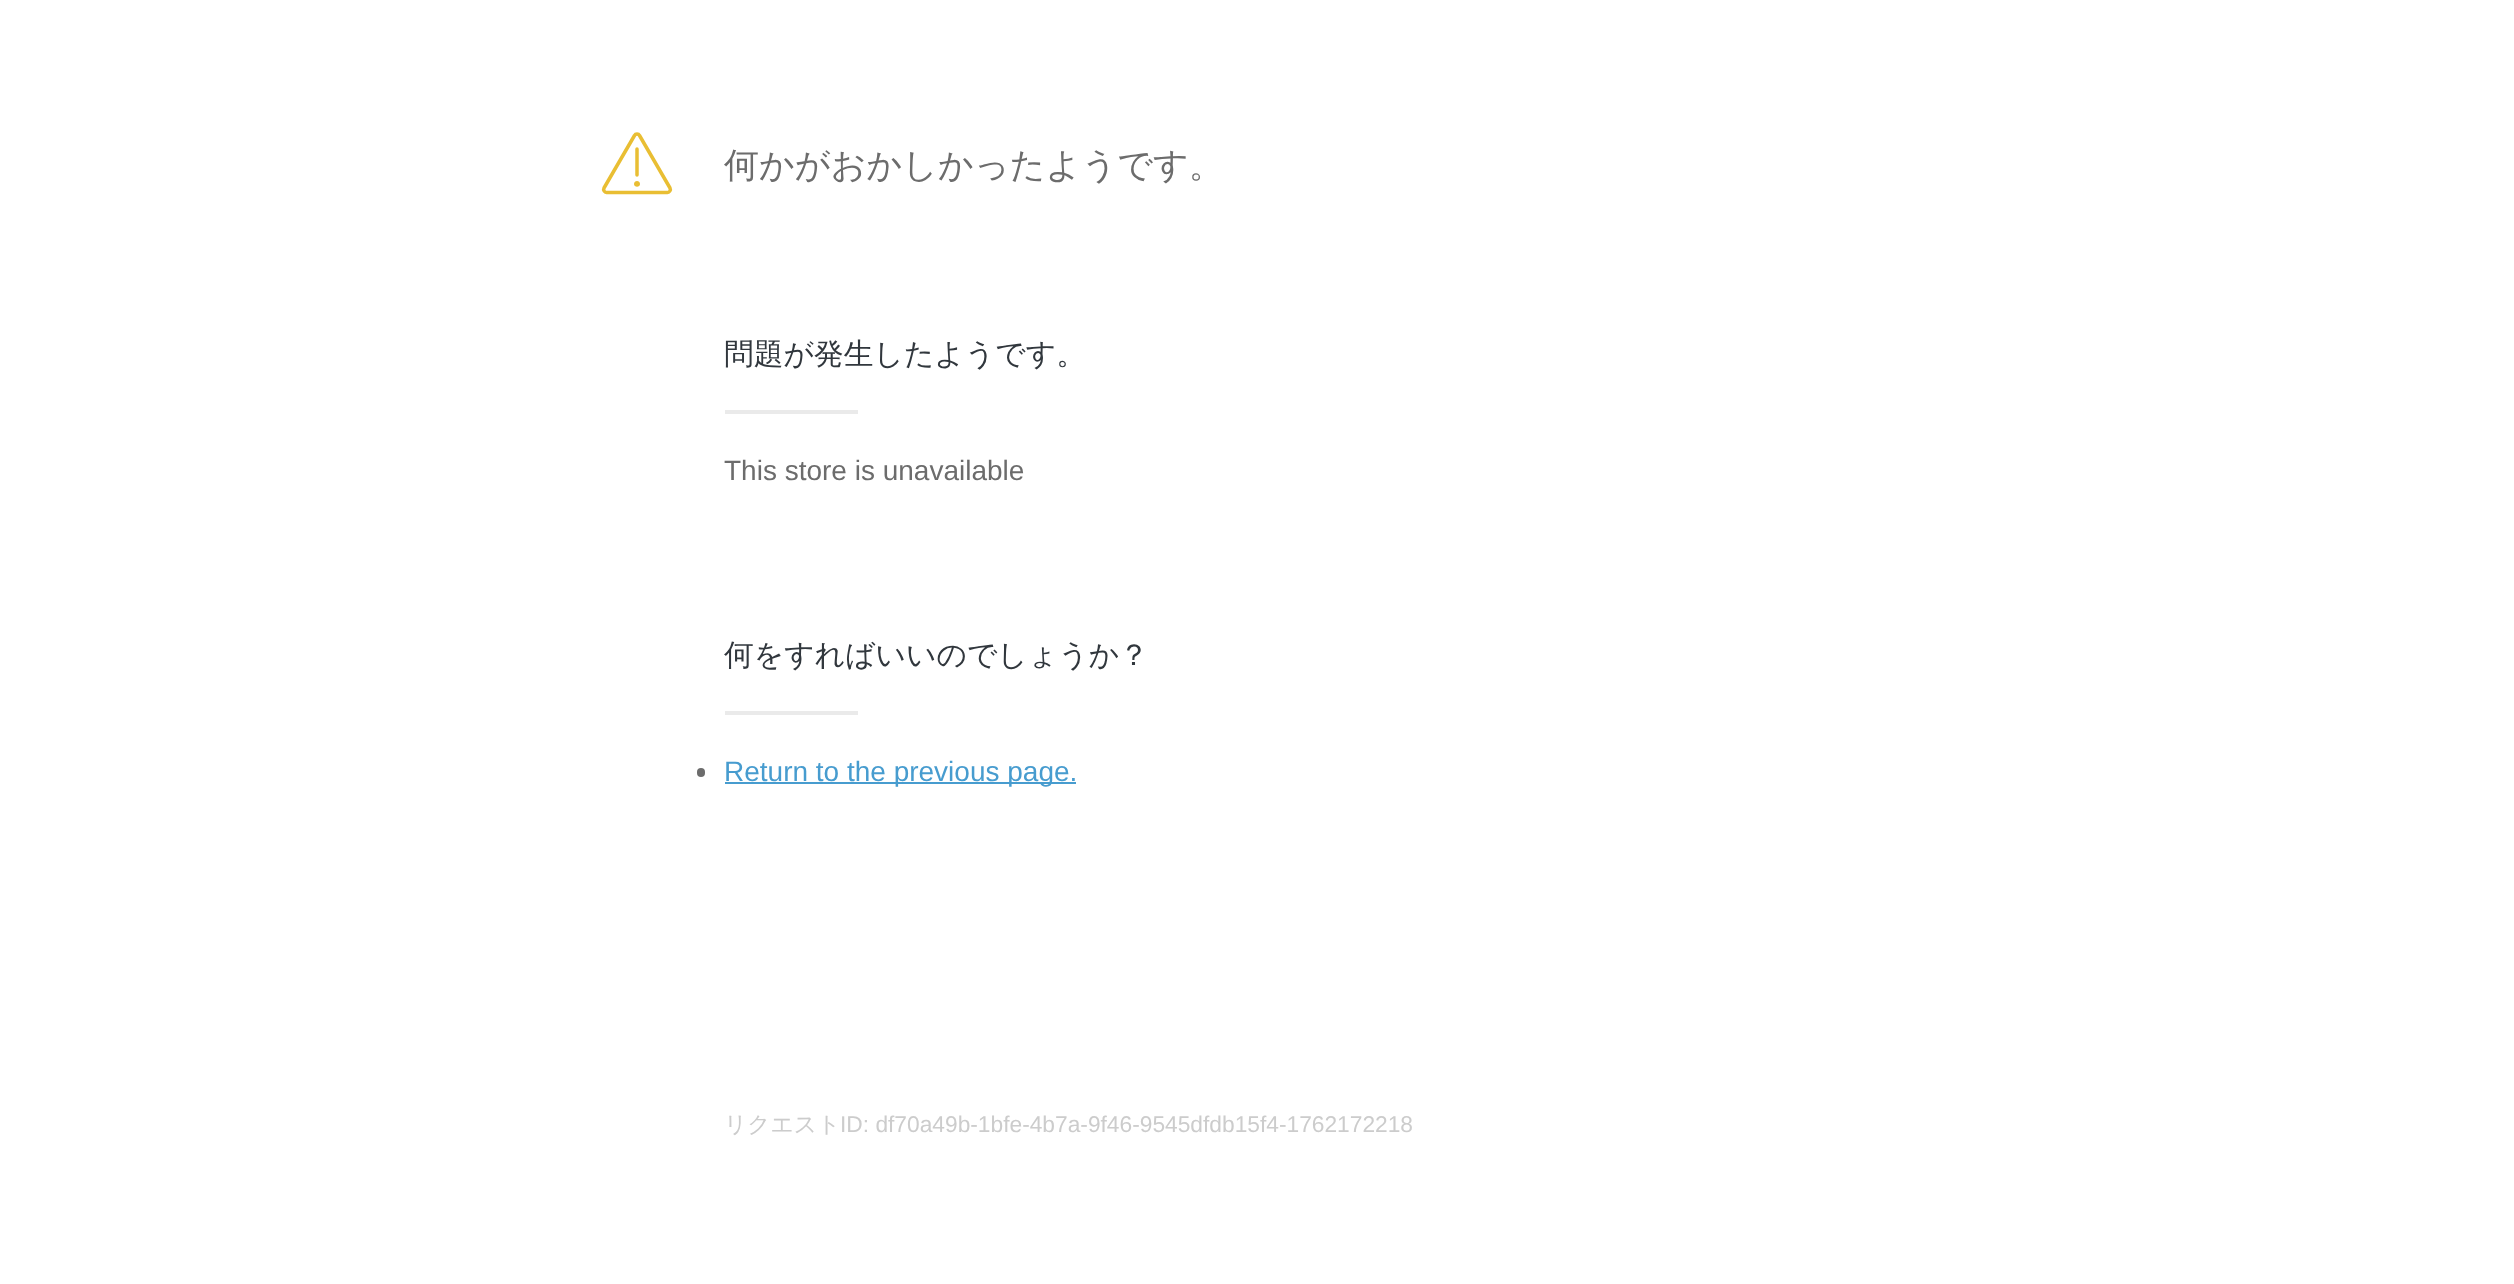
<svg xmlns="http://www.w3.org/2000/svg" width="2514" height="1284">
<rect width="100%" height="100%" fill="#fff"/>
<path d="M634.5 135.5c1-2 4-2 5 0l30.5 52.5c1 2-.5 4.5-2.5 4.5h-61c-2 0-3.5-2.5-2.5-4.5z" fill="none" stroke="#e9be33" stroke-width="3.5" stroke-linejoin="round"/>
<path d="M637 175v-26" fill="none" stroke="#e9be33" stroke-width="3.5" stroke-linecap="round" stroke-linejoin="round"/>
<path d="M640 184c0 3.5-6 3.5-6 0c0-4 6-4 6 0" fill="#e9be33" fill-rule="evenodd"/>
<text x="724" y="177" style="font-family:WenQuanYi Zen Hei;font-size:35px;font-weight:500;fill:#6c6c6c">何かがおかしかったようです。</text>
<text x="724" y="364" style="font-family:WenQuanYi Zen Hei;font-size:29.75px;font-weight:500;fill:#31373d">問題が発生したようです。</text>
<rect x="725" y="410" width="133" height="4" fill="#eaeaea"/>
<text x="724" y="480" style="font-family:Liberation Sans;font-size:28px;fill:#6c6c6c">This store is unavailable</text>
<text x="724" y="665" style="font-family:WenQuanYi Zen Hei;font-size:29.75px;font-weight:500;fill:#31373d">何をすればいいのでしょうか？</text>
<rect x="725" y="711" width="133" height="4" fill="#eaeaea"/>
<rect x="697" y="768" width="8" height="9" rx="4" fill="#6c6c6c"/>
<rect x="725" y="782" width="351" height="2" fill="#479ccf"/>
<text x="724" y="781" style="font-family:Liberation Sans;font-size:28px;fill:#479ccf">Return to the previous page.</text>
<text x="724" y="1132" style="font-family:WenQuanYi Zen Hei;font-size:22.75px;font-weight:500;fill:#ccc">リクエスト</text>
<text x="840" y="1132" style="font-family:Liberation Sans;font-size:22.75px;fill:#ccc">ID: df70a49b-1bfe-4b7a-9f46-9545dfdb15f4-1762172218</text>
</svg>
